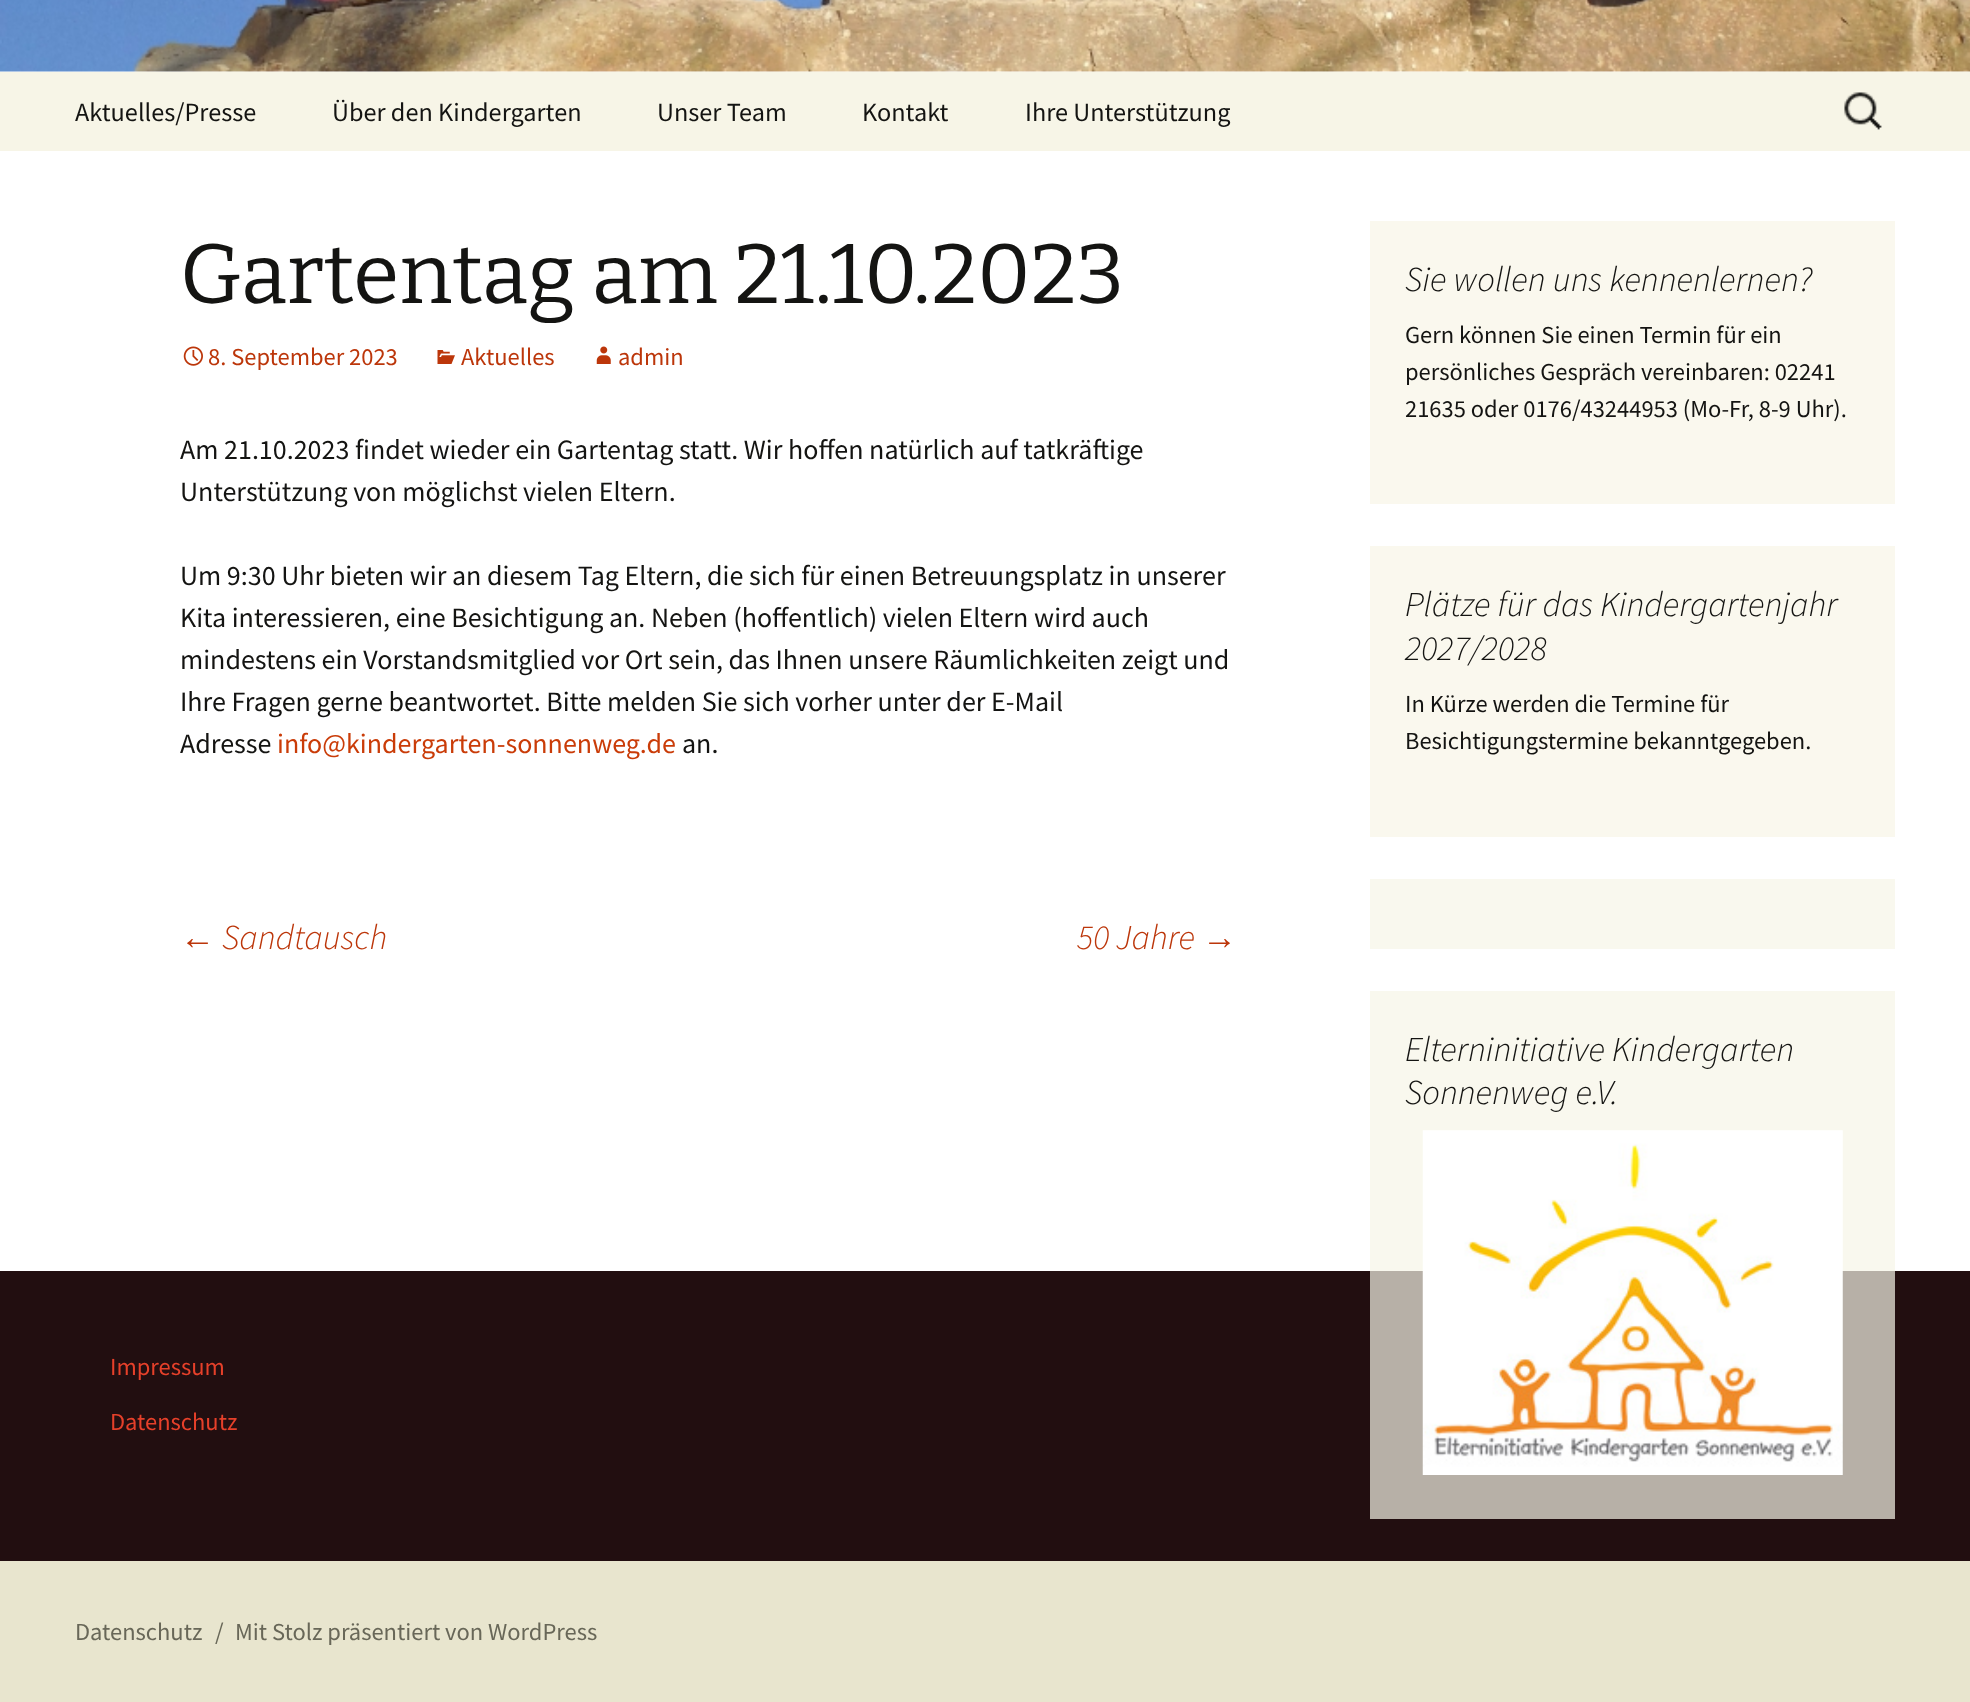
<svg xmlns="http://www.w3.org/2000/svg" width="1970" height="1702">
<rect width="100%" height="100%" fill="#fff"/>
<rect x="1370" y="991" width="525" height="280" fill="#f9f8ee"/>
<image x="0" y="0" width="1970" height="72" href="media/1.png"/>
<rect y="72" width="1970" height="79" fill="#f7f5e7"/>
<text x="75" y="121" style="font-family:Source Sans Pro;font-size:26.25px;fill:#141412">Aktuelles/Presse</text>
<text x="332" y="121" style="font-family:Source Sans Pro;font-size:26.25px;fill:#141412">Über den Kindergarten</text>
<text x="657" y="121" style="font-family:Source Sans Pro;font-size:26.25px;fill:#141412">Unser Team</text>
<text x="862" y="121" style="font-family:Source Sans Pro;font-size:26.25px;fill:#141412">Kontakt</text>
<text x="1025" y="121" style="font-family:Source Sans Pro;font-size:26.25px;fill:#141412">Ihre Unterstützung</text>
<image x="1844" y="92" width="38" height="38" href="media/2.png"/>
<text x="180" y="303" style="font-family:Bitter;font-size:84px;font-weight:100;fill:#141412">Gartentag am 21.10.2023</text>
<image x="183" y="346" width="20" height="20" href="media/3.png"/>
<text x="208" y="365" style="font-family:Source Sans Pro;font-size:24.5px;fill:#bc360a">8. September 2023</text>
<image x="437" y="350" width="18" height="14" href="media/4.png"/>
<text x="461" y="365" style="font-family:Source Sans Pro;font-size:24.5px;fill:#bc360a">Aktuelles</text>
<image x="596" y="346" width="15" height="18" href="media/5.png"/>
<text x="618" y="365" style="font-family:Source Sans Pro;font-size:24.5px;fill:#bc360a">admin</text>
<text x="180" y="459" style="font-family:Source Sans Pro;font-size:28px;fill:#141412">Am 21.10.2023 findet wieder ein Gartentag statt. Wir hoffen natürlich auf tatkräftige</text>
<text x="180" y="501" style="font-family:Source Sans Pro;font-size:28px;fill:#141412">Unterstützung von möglichst vielen Eltern.</text>
<text x="180" y="585" style="font-family:Source Sans Pro;font-size:28px;fill:#141412">Um 9:30 Uhr bieten wir an diesem Tag Eltern, die sich für einen Betreuungsplatz in unserer</text>
<text x="180" y="627" style="font-family:Source Sans Pro;font-size:28px;fill:#141412">Kita interessieren, eine Besichtigung an. Neben (hoffentlich) vielen Eltern wird auch</text>
<text x="180" y="669" style="font-family:Source Sans Pro;font-size:28px;fill:#141412">mindestens ein Vorstandsmitglied vor Ort sein, das Ihnen unsere Räumlichkeiten zeigt und</text>
<text x="180" y="711" style="font-family:Source Sans Pro;font-size:28px;fill:#141412">Ihre Fragen gerne beantwortet. Bitte melden Sie sich vorher unter der E-Mail</text>
<text x="180" y="753" style="font-family:Source Sans Pro;font-size:28px;fill:#141412">Adresse</text>
<text x="277" y="753" style="font-family:Source Sans Pro;font-size:28px;fill:#ca3c08">info@kindergarten-sonnenweg.de</text>
<text x="682" y="753" style="font-family:Source Sans Pro;font-size:28px;fill:#141412">an.</text>
<text x="180" y="949" style="font-family:Liberation Sans;font-size:35px;font-style:italic;fill:#bc360a">←</text>
<text x="222" y="949" style="font-family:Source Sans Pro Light;font-size:35px;font-weight:300;font-style:italic;fill:#bc360a">Sandtausch</text>
<text x="1077" y="949" style="font-family:Source Sans Pro Light;font-size:35px;font-weight:300;font-style:italic;fill:#bc360a">50 Jahre</text>
<text x="1202" y="949" style="font-family:Liberation Sans;font-size:35px;font-style:italic;fill:#bc360a">→</text>
<rect x="1370" y="221" width="525" height="283" fill="#faf8ee"/>
<text x="1405" y="291" style="font-family:Source Sans Pro Light;font-size:35px;font-weight:300;font-style:italic;fill:#141412">Sie wollen uns kennenlernen?</text>
<text x="1405" y="343" style="font-family:Source Sans Pro;font-size:24.5px;fill:#141412">Gern können Sie einen Termin für ein</text>
<text x="1405" y="380" style="font-family:Source Sans Pro;font-size:24.5px;fill:#141412">persönliches Gespräch vereinbaren: 02241</text>
<text x="1405" y="417" style="font-family:Source Sans Pro;font-size:24.5px;fill:#141412">21635 oder 0176/43244953 (Mo-Fr, 8-9 Uhr).</text>
<rect x="1370" y="546" width="525" height="291" fill="#faf8ee"/>
<text x="1405" y="616" style="font-family:Source Sans Pro Light;font-size:35px;font-weight:300;font-style:italic;fill:#141412">Plätze für das Kindergartenjahr</text>
<text x="1405" y="660" style="font-family:Source Sans Pro Light;font-size:35px;font-weight:300;font-style:italic;fill:#141412">2027/2028</text>
<text x="1405" y="712" style="font-family:Source Sans Pro;font-size:24.5px;fill:#141412">In Kürze werden die Termine für</text>
<text x="1405" y="749" style="font-family:Source Sans Pro;font-size:24.5px;fill:#141412">Besichtigungstermine bekanntgegeben.</text>
<rect x="1370" y="879" width="525" height="70" fill="#f9f8ee"/>
<text x="1405" y="1061" style="font-family:Source Sans Pro Light;font-size:35px;font-weight:300;font-style:italic;fill:#141412">Elterninitiative Kindergarten</text>
<text x="1405" y="1104" style="font-family:Source Sans Pro Light;font-size:35px;font-weight:300;font-style:italic;fill:#141412">Sonnenweg e.V.</text>
<rect y="1271" width="1970" height="290" fill="#220e10"/>
<rect x="1370" y="1271" width="525" height="248" fill="#b7b0a7"/>
<image x="1422" y="1130" width="421" height="345" href="media/6.png"/>
<rect y="1561" width="1970" height="141" fill="#e8e5ce"/>
<text x="110" y="1375" style="font-family:Source Sans Pro;font-size:24.5px;fill:#e6402a">Impressum</text>
<text x="110" y="1430" style="font-family:Source Sans Pro;font-size:24.5px;fill:#e6402a">Datenschutz</text>
<text x="75" y="1640" style="font-family:Source Sans Pro;font-size:24.5px;fill:#686758">Datenschutz</text>
<text x="215" y="1640" style="font-family:Source Sans Pro;font-size:24.5px;fill:#686758">/</text>
<text x="235" y="1640" style="font-family:Source Sans Pro;font-size:24.5px;fill:#686758">Mit Stolz präsentiert von WordPress</text>
</svg>
